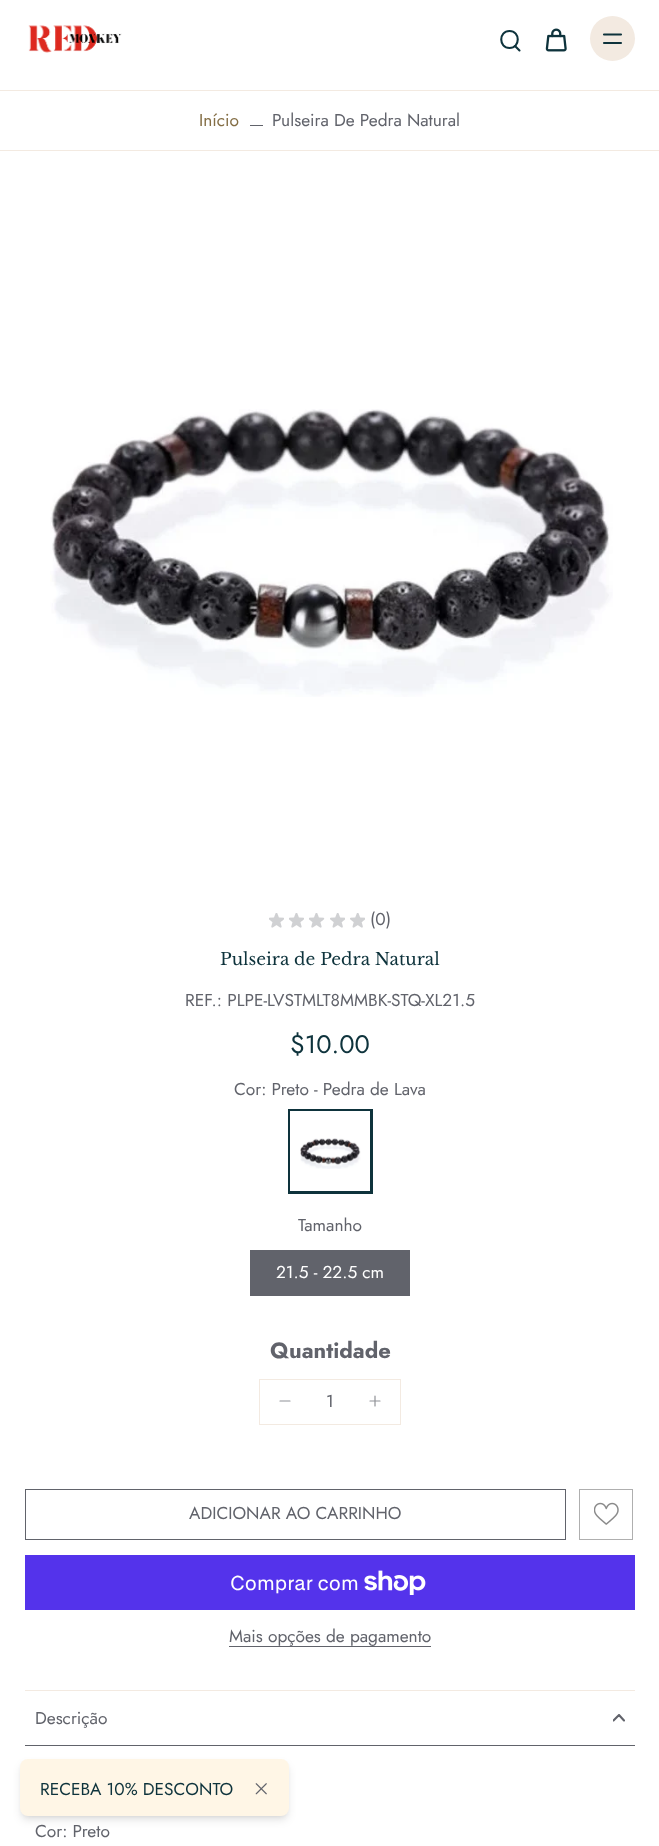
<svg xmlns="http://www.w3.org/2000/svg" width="659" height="1846">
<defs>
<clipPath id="clip1"><rect x="613" y="1714" width="12" height="9"/></clipPath>
</defs>
<rect width="100%" height="100%" fill="#fff"/>
<image x="28" y="25" width="94" height="28" href="media/1.png"/>
<path d="M509.5 48c11 0 11-17 0-17c-11 0-11 17 0 17z" fill="none" stroke="#0e333c" stroke-width="2.1"/>
<path d="M515 46l4.5 4.5" fill="none" stroke="#0e333c" stroke-width="2.1" stroke-linecap="round"/>
<image x="545" y="28" width="22" height="24" href="media/2.png"/>
<circle cx="612.5" cy="38.5" r="22.5" fill="#f3eae1"/>
<path d="M604 34.5h17m-17 8.5h17" fill="none" stroke="#0e333c" stroke-width="2.1" stroke-linecap="round"/>
<rect y="90" width="659" height="1" fill="#f3eae1"/>
<rect y="150" width="659" height="1" fill="#f3eae1"/>
<text x="199" y="126" style="font-family:Jost;font-size:17.3px;fill:#846e45">Início</text>
<rect x="250" y="125" width="13" height="1" fill="#61636b"/>
<text x="272" y="126" style="font-family:Jost;font-size:17.3px;fill:#61636b">Pulseira De Pedra Natural</text>
<image x="50" y="409" width="563" height="288" href="media/3.png"/>
<image x="269" y="913" width="15" height="15" href="media/4.png"/>
<image x="289" y="913" width="15" height="15" href="media/4.png"/>
<image x="309" y="913" width="16" height="15" href="media/5.png"/>
<image x="330" y="913" width="15" height="15" href="media/6.png"/>
<image x="350" y="913" width="15" height="15" href="media/6.png"/>
<text x="370" y="925" style="font-family:Jost;font-size:17.3px;fill:#61636b">(0)</text>
<text x="220" y="965" style="font-family:Libre Baskerville;font-size:17px;fill:#0e333c">Pulseira de Pedra Natural</text>
<text x="185" y="1006" style="font-family:Jost;font-size:17.3px;fill:#61636b">REF.: PLPE-LVSTMLT8MMBK-STQ-XL21.5</text>
<text x="290" y="1053" style="font-family:Jost;font-size:25.5px;fill:#0e333c">$10.00</text>
<text x="234" y="1095" style="font-family:Jost;font-size:17.3px;fill:#61636b">Cor: Preto - Pedra de Lava</text>
<rect x="289.5" y="1110.5" width="82" height="82" fill="none" stroke="#0e333c" stroke-width="3"/>
<rect x="292.5" y="1113.5" width="75" height="75" fill="none" stroke="#fff" stroke-width="5"/>
<image x="300" y="1138" width="61" height="31" href="media/7.png"/>
<text x="298" y="1231" style="font-family:Jost;font-size:17.3px;fill:#61636b">Tamanho</text>
<rect x="250" y="1250" width="160" height="46" fill="#61636b"/>
<text x="276" y="1278" style="font-family:Jost;font-size:17.3px;fill:#fff">21.5 - 22.5 cm</text>
<text x="270" y="1358" style="font-family:Jost;font-size:22px;font-weight:bold;fill:#61636b">Quantidade</text>
<rect x="259.5" y="1379.5" width="141" height="45" fill="none" stroke="#f3eae1"/>
<path d="M280 1401h10" fill="none" stroke="#909297" stroke-width="1.2" stroke-linecap="round" stroke-linejoin="round"/>
<text x="326" y="1407" style="font-family:Jost;font-size:17.3px;fill:#61636b">1</text>
<path d="M370 1401h10m-5-5v10" fill="none" stroke="#909297" stroke-width="1.2" stroke-linecap="round" stroke-linejoin="round"/>
<rect x="25.5" y="1489.5" width="540" height="50" fill="none" stroke="#61636b"/>
<text x="189" y="1519" style="font-family:Jost;font-size:17.3px;fill:#61636b">ADICIONAR AO CARRINHO</text>
<rect x="579.5" y="1489.5" width="53" height="50" fill="none" stroke="#afafaf"/>
<image x="594" y="1502" width="25" height="23" href="media/8.png"/>
<rect x="25" y="1555" width="610" height="55" fill="#5433eb"/>
<text x="230" y="1590" style="font-family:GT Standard;font-size:20px;fill:#fff">Comprar com</text>
<image x="364" y="1570" width="62" height="25" href="media/9.png"/>
<text x="229" y="1642" style="font-family:Jost;font-size:17.3px;fill:#61636b">Mais opções de pagamento</text>
<rect x="229" y="1646" width="202" height="1" fill="#61636b"/>
<rect x="25" y="1690" width="610" height="1" fill="#f3eae1"/>
<text x="35" y="1724" style="font-family:Jost;font-size:17.3px;fill:#61636b">Descrição</text>
<g clip-path="url(#clip1)">
<path d="M624 1720.5l-5-5.5l-5.5 5.5" fill="none" stroke="#61636b" stroke-width="2.1" stroke-linecap="round" stroke-linejoin="round"/>
</g>
<rect x="25" y="1745" width="610" height="1" fill="#61636b"/>
<text x="35" y="1837" style="font-family:Jost;font-size:17.3px;fill:#61636b">Cor: Preto</text>
<rect x="23" y="1764" width="263" height="52" rx="5" fill="#0000001a" filter="blur(2.5px)"/>
<rect x="21" y="1765" width="267" height="55" rx="6" fill="#0000001a" filter="blur(4px)"/>
<rect x="20" y="1759" width="269" height="57" rx="8" fill="#fff6e6"/>
<text x="40" y="1795" style="font-family:Jost;font-size:17.3px;fill:#0e333c">RECEBA 10% DESCONTO</text>
<image x="255" y="1783" width="12" height="12" href="media/10.png"/>
</svg>
